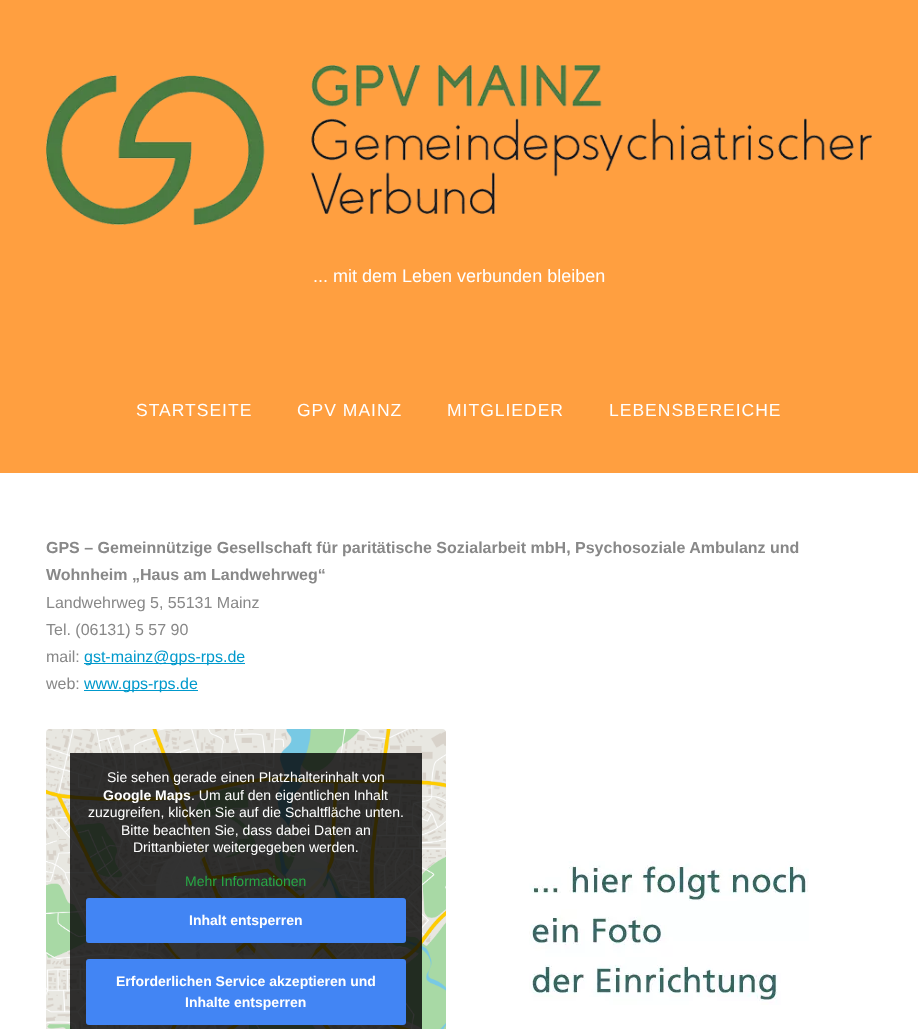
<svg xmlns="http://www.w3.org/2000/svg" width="918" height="1029">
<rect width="100%" height="100%" fill="#fff"/>
<rect width="918" height="473" fill="#ff9f40"/>
<image x="46" y="65" width="826" height="160" href="media/1.png"/>
<text x="313" y="282" style="font-family:Liberation Sans;font-size:18px;fill:#fff">... mit dem Leben verbunden bleiben</text>
<text x="136" y="416" style="font-family:Liberation Sans;font-size:17.5px;letter-spacing:1px;fill:#fff">STARTSEITE</text>
<text x="297" y="416" style="font-family:Liberation Sans;font-size:17.5px;letter-spacing:1px;fill:#fff">GPV MAINZ</text>
<text x="447" y="416" style="font-family:Liberation Sans;font-size:17.5px;letter-spacing:1px;fill:#fff">MITGLIEDER</text>
<text x="609" y="416" style="font-family:Liberation Sans;font-size:17.5px;letter-spacing:1px;fill:#fff">LEBENSBEREICHE</text>
<text x="46" y="553" style="font-family:Liberation Sans;font-size:16px;font-weight:bold;fill:#888">GPS – Gemeinnützige Gesellschaft für paritätische Sozialarbeit mbH, Psychosoziale Ambulanz und</text>
<text x="46" y="580" style="font-family:Liberation Sans;font-size:16px;font-weight:bold;fill:#888">Wohnheim „Haus am Landwehrweg“</text>
<text x="46" y="608" style="font-family:Liberation Sans;font-size:16px;fill:#888">Landwehrweg 5, 55131 Mainz</text>
<text x="46" y="635" style="font-family:Liberation Sans;font-size:16px;fill:#888">Tel. (06131) 5 57 90</text>
<text x="46" y="662" style="font-family:Liberation Sans;font-size:16px;fill:#888">mail:</text>
<rect x="84" y="663" width="161" height="1" fill="#09c"/>
<text x="84" y="662" style="font-family:Liberation Sans;font-size:16px;fill:#09c">gst-mainz@gps-rps.de</text>
<text x="46" y="689" style="font-family:Liberation Sans;font-size:16px;fill:#888">web:</text>
<rect x="84" y="690" width="114" height="1" fill="#09c"/>
<text x="84" y="689" style="font-family:Liberation Sans;font-size:16px;fill:#09c">www.gps-rps.de</text>
<image x="46" y="729" width="400" height="300" href="media/2.png"/>
<rect x="70" y="753" width="352" height="276" fill="#000000cc"/>
<text x="107" y="782" style="font-family:Liberation Sans;font-size:14px;fill:#fff">Sie sehen gerade einen Platzhalterinhalt von</text>
<text x="103" y="800" style="font-family:Liberation Sans;font-size:14px;font-weight:bold;fill:#fff">Google Maps</text>
<text x="191" y="800" style="font-family:Liberation Sans;font-size:14px;fill:#fff">. Um auf den eigentlichen Inhalt</text>
<text x="88" y="817" style="font-family:Liberation Sans;font-size:14px;fill:#fff">zuzugreifen, klicken Sie auf die Schaltfläche unten.</text>
<text x="121" y="835" style="font-family:Liberation Sans;font-size:14px;fill:#fff">Bitte beachten Sie, dass dabei Daten an</text>
<text x="133" y="852" style="font-family:Liberation Sans;font-size:14px;fill:#fff">Drittanbieter weitergegeben werden.</text>
<text x="185" y="886" style="font-family:Liberation Sans;font-size:14px;fill:#28a745">Mehr Informationen</text>
<rect x="86" y="898" width="320" height="45" rx="3" fill="#4285f4"/>
<text x="189" y="925" style="font-family:Liberation Sans;font-size:14px;font-weight:bold;fill:#fff">Inhalt entsperren</text>
<rect x="86" y="959" width="320" height="66" rx="3" fill="#4285f4"/>
<text x="116" y="986" style="font-family:Liberation Sans;font-size:14px;font-weight:bold;fill:#fff">Erforderlichen Service akzeptieren und</text>
<text x="185" y="1007" style="font-family:Liberation Sans;font-size:14px;font-weight:bold;fill:#fff">Inhalte entsperren</text>
<image x="529" y="861" width="280" height="144" href="media/3.png"/>
</svg>
